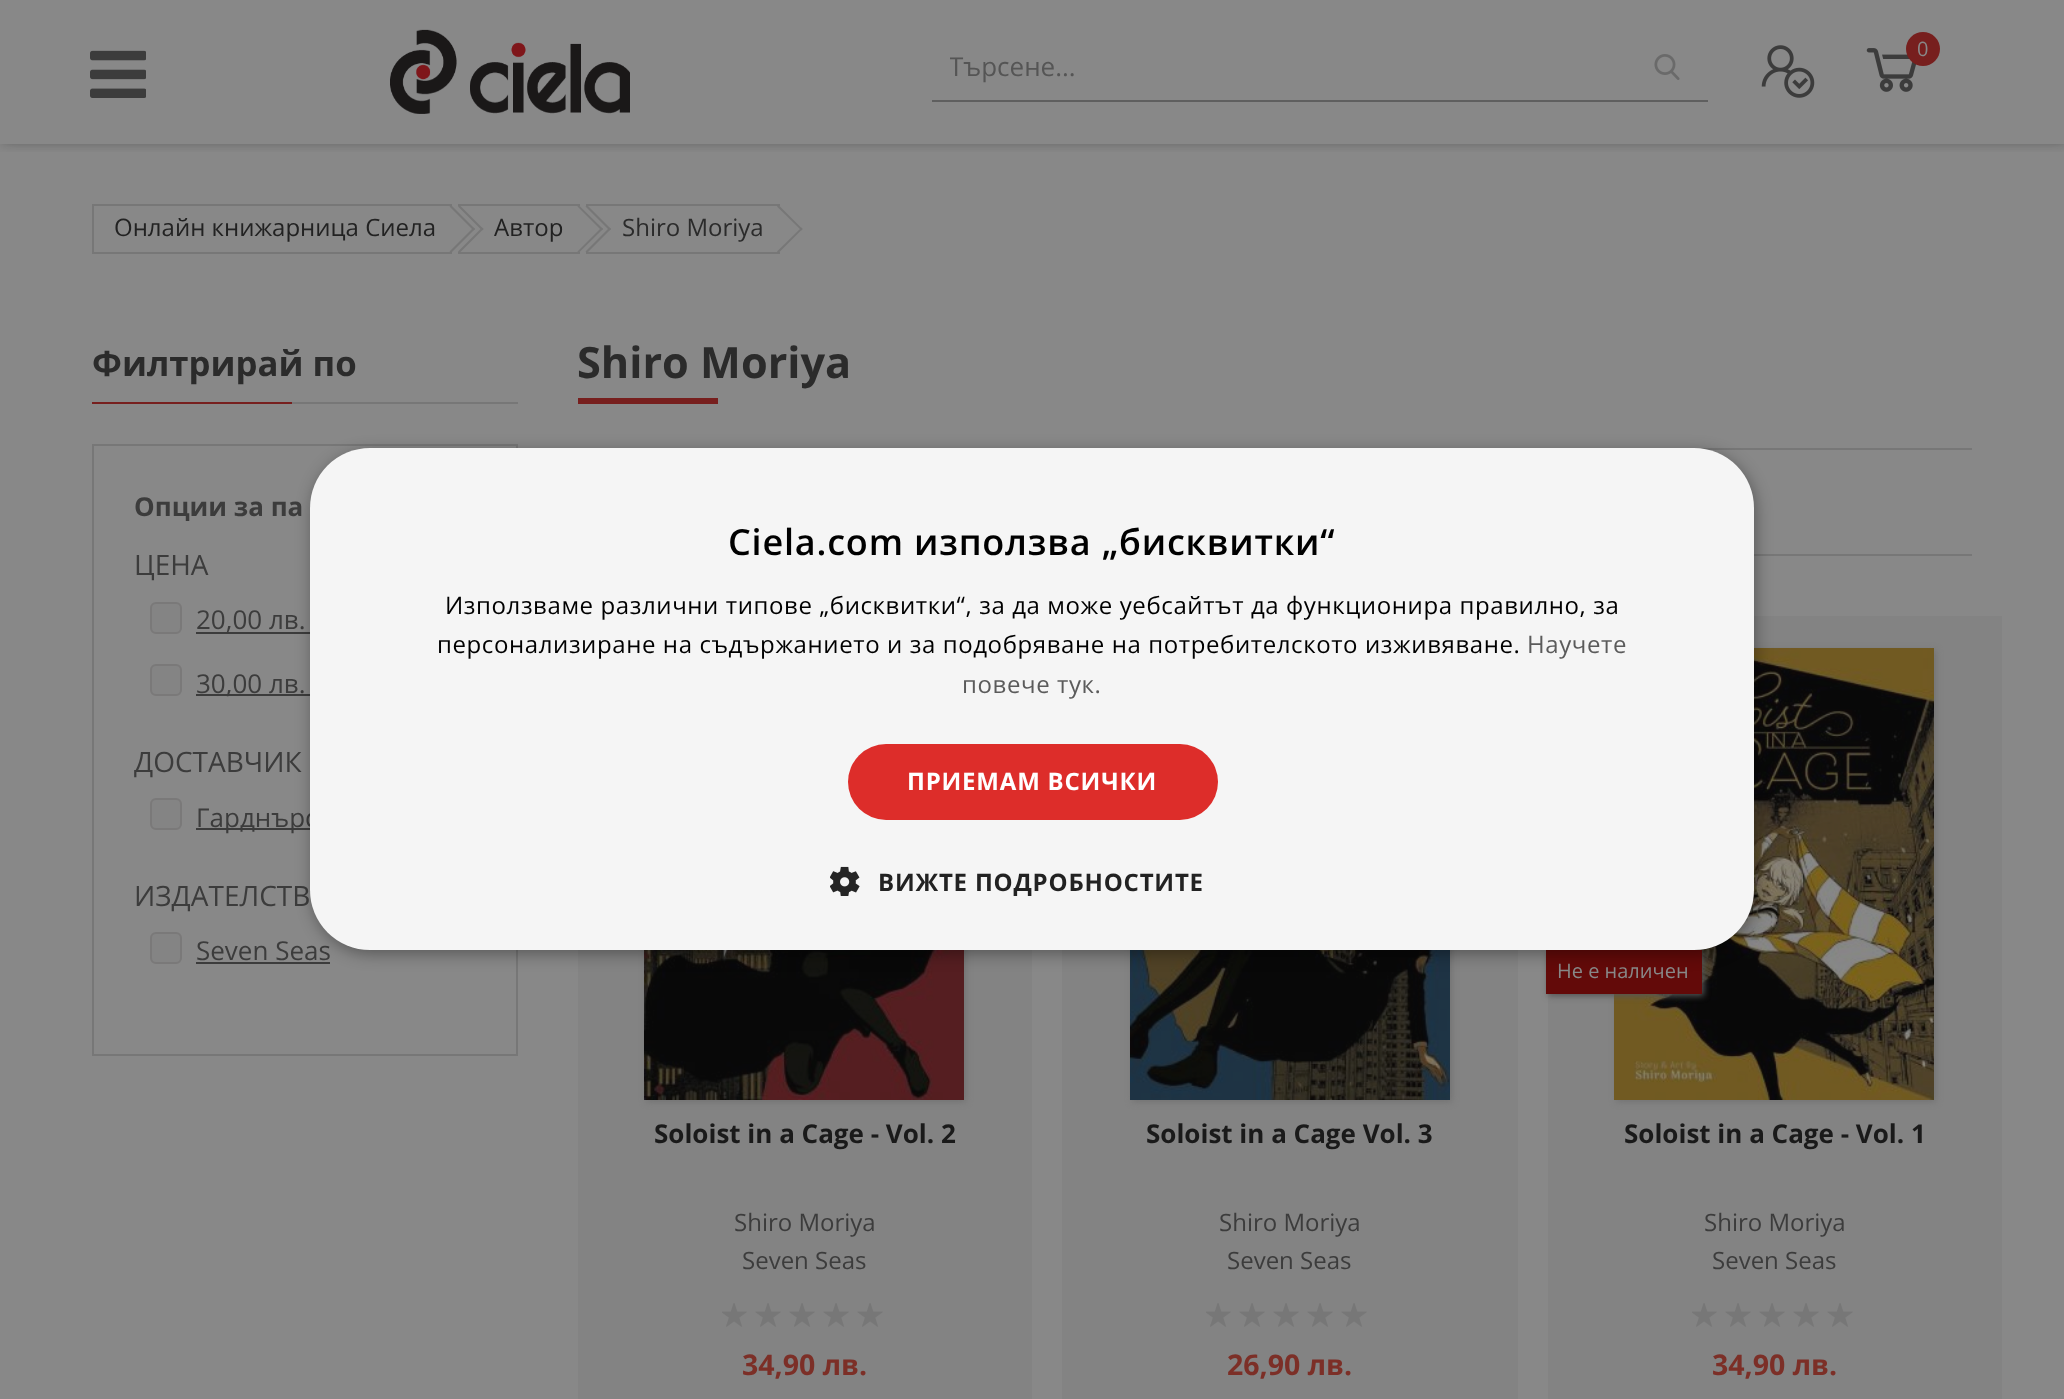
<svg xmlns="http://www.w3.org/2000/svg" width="2064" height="1399">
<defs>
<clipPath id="clip1"><rect x="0" y="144" width="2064" height="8"/></clipPath>
<clipPath id="clip2"><rect x="950" y="48" width="688" height="36"/></clipPath>
</defs>
<rect width="100%" height="100%" fill="#888"/>
<g clip-path="url(#clip1)">
<rect x="2" y="-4" width="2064" height="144" fill="#09090980" filter="blur(7px)"/>
</g>
<image x="90" y="50" width="56" height="48" href="media/1.png"/>
<image x="390" y="29" width="240" height="85" href="media/2.png"/>
<rect x="932" y="100" width="776" height="2" fill="#5f5f5f"/>
<g clip-path="url(#clip2)">
<text x="949" y="76" style="font-family:Open Sans;font-size:26px;fill:#555">Търсене...</text>
</g>
<image x="1654" y="54" width="26" height="26" href="media/3.png"/>
<image x="1761" y="45" width="54" height="53" href="media/4.png"/>
<image x="1866" y="48" width="51" height="44" href="media/5.png"/>
<circle cx="1923" cy="49" r="17" fill="#771f1e"/>
<text x="1917" y="56" style="font-family:Open Sans;font-size:20px;fill:#888">0</text>
<rect x="92" y="204" width="360" height="2" fill="#777"/>
<rect x="92" y="252" width="360" height="2" fill="#777"/>
<rect x="92" y="204" width="2" height="50" fill="#777"/>
<text x="114" y="236" style="font-family:Open Sans;font-size:24px;fill:#222">Онлайн книжарница Сиела</text>
<path d="M451 205l24 24l-1.5 1.5l-24-24z" fill="#777"/>
<path d="M473.5 227.5l1.5 1.5l-24 24l-1.5-1.5z" fill="#777"/>
<rect x="458" y="204" width="122" height="2" fill="#777"/>
<rect x="458" y="252" width="122" height="2" fill="#777"/>
<path d="M459.5 205l24 24l-1.5 1.5l-24-24z" fill="#777"/>
<path d="M482 227.5l1.5 1.5l-24 24l-1.5-1.5z" fill="#777"/>
<text x="494" y="236" style="font-family:Open Sans;font-size:24px;fill:#222">Автор</text>
<path d="M578.5 205l24.5 24l-1.5 1.5l-24-24z" fill="#777"/>
<path d="M601.5 227.5l1.5 1.5l-24.5 24l-1-1.5z" fill="#777"/>
<rect x="586" y="204" width="194" height="2" fill="#777"/>
<rect x="586" y="252" width="194" height="2" fill="#777"/>
<path d="M587 205l24 24l-1.5 1.5l-24-24z" fill="#777"/>
<path d="M609.5 227.5l1.5 1.5l-24 24l-1.5-1.5z" fill="#777"/>
<text x="622" y="236" style="font-family:Open Sans;font-size:24px;fill:#2b2b2b">Shiro Moriya</text>
<path d="M778.5 205l24 24l-1 1.5l-24.5-24z" fill="#777"/>
<path d="M801.5 227.5l1 1.5l-24 24l-1.5-1.5z" fill="#777"/>
<rect x="292" y="402" width="226" height="2" fill="#777"/>
<text x="92" y="376" style="font-family:Open Sans;font-size:34.75px;font-weight:bold;fill:#2b2b2b">Филтрирай по</text>
<rect x="92" y="402" width="200" height="2" fill="#771f1e"/>
<rect x="93" y="445" width="424" height="610" fill="none" stroke="#777" stroke-width="2"/>
<text x="134" y="516" style="font-family:Open Sans;font-size:26px;font-weight:bold;fill:#3c3c3c">Опции за па</text>
<text x="134" y="575" style="font-family:Open Sans;font-size:28px;fill:#3c3c3c">ЦЕНА</text>
<rect x="151" y="603" width="30" height="30" rx="5" fill="#848484" stroke="#7a7979" stroke-width="2"/>
<rect x="196" y="632" width="114" height="2" fill="#3c3c3c"/>
<text x="196" y="629" style="font-family:Open Sans;font-size:26px;fill:#3c3c3c">20,00 лв.</text>
<rect x="151" y="665" width="30" height="30" rx="5" fill="#848484" stroke="#7a7979" stroke-width="2"/>
<rect x="196" y="694" width="114" height="2" fill="#3c3c3c"/>
<text x="196" y="693" style="font-family:Open Sans;font-size:26px;fill:#3c3c3c">30,00 лв.</text>
<text x="134" y="772" style="font-family:Open Sans;font-size:28px;fill:#3c3c3c">ДОСТАВЧИК</text>
<rect x="151" y="799" width="30" height="30" rx="5" fill="#848484" stroke="#7a7979" stroke-width="2"/>
<rect x="196" y="828" width="122" height="2" fill="#3c3c3c"/>
<text x="196" y="827" style="font-family:Open Sans;font-size:26px;fill:#3c3c3c">Гарднърс</text>
<text x="134" y="906" style="font-family:Open Sans;font-size:28px;fill:#3c3c3c">ИЗДАТЕЛСТВ</text>
<rect x="151" y="933" width="30" height="30" rx="5" fill="#848484" stroke="#7a7979" stroke-width="2"/>
<text x="196" y="960" style="font-family:Open Sans;font-size:26px;fill:#3c3c3c">Seven Seas</text>
<rect x="196" y="962" width="134" height="2" fill="#3c3c3c"/>
<text x="577" y="378" style="font-family:Open Sans;font-size:43.25px;font-weight:bold;fill:#2b2b2b">Shiro Moriya</text>
<rect x="578" y="398" width="140" height="6" fill="#771f1e"/>
<rect x="1695" y="448" width="277" height="2" fill="#777"/>
<rect x="1754" y="554" width="218" height="2" fill="#777"/>
<rect x="578" y="950" width="454" height="449" fill="#838383"/>
<rect x="646" y="650" width="320" height="452" fill="#737373" filter="blur(3px)"/>
<image x="644" y="950" width="320" height="150" href="media/6.png"/>
<text x="654" y="1143" style="font-family:Open Sans;font-size:26px;font-weight:bold;fill:#1a1a1a">Soloist in a Cage - Vol. 2</text>
<text x="734" y="1231" style="font-family:Open Sans;font-size:24px;fill:#3c3c3c">Shiro Moriya</text>
<text x="742" y="1269" style="font-family:Open Sans;font-size:24px;fill:#3c3c3c">Seven Seas</text>
<image x="722" y="1303" width="161" height="24" href="media/7.png"/>
<text x="742" y="1375" style="font-family:Open Sans;font-size:28.5px;font-weight:bold;fill:#7c2f27">34,90 лв.</text>
<rect x="1062" y="950" width="456" height="449" fill="#838383"/>
<rect x="1132" y="650" width="320" height="452" fill="#737373" filter="blur(3px)"/>
<image x="1130" y="950" width="320" height="150" href="media/8.png"/>
<text x="1146" y="1143" style="font-family:Open Sans;font-size:26px;font-weight:bold;fill:#1a1a1a">Soloist in a Cage Vol. 3</text>
<text x="1219" y="1231" style="font-family:Open Sans;font-size:24px;fill:#3c3c3c">Shiro Moriya</text>
<text x="1227" y="1269" style="font-family:Open Sans;font-size:24px;fill:#3c3c3c">Seven Seas</text>
<image x="1206" y="1303" width="161" height="24" href="media/7.png"/>
<text x="1227" y="1375" style="font-family:Open Sans;font-size:28.5px;font-weight:bold;fill:#7c2f27">26,90 лв.</text>
<rect x="1548" y="616" width="454" height="783" fill="#838383"/>
<rect x="1616" y="650" width="320" height="452" fill="#737373" filter="blur(3px)"/>
<image x="1614" y="648" width="320" height="452" href="media/9.png"/>
<rect x="1548" y="952" width="156" height="44" fill="#555" filter="blur(3px)"/>
<rect x="1546" y="950" width="156" height="44" fill="#630a09"/>
<text x="1557" y="978" style="font-family:Open Sans;font-size:20px;fill:#888">Не е наличен</text>
<text x="1624" y="1143" style="font-family:Open Sans;font-size:26px;font-weight:bold;fill:#1a1a1a">Soloist in a Cage - Vol. 1</text>
<text x="1704" y="1231" style="font-family:Open Sans;font-size:24px;fill:#3c3c3c">Shiro Moriya</text>
<text x="1712" y="1269" style="font-family:Open Sans;font-size:24px;fill:#3c3c3c">Seven Seas</text>
<image x="1692" y="1303" width="161" height="24" href="media/7.png"/>
<text x="1712" y="1375" style="font-family:Open Sans;font-size:28.5px;font-weight:bold;fill:#7c2f27">34,90 лв.</text>
<rect x="312" y="452" width="1444" height="502" rx="60" fill="#00000059" filter="blur(8px)"/>
<rect x="310" y="448" width="1444" height="502" rx="60" fill="#f5f5f5"/>
<text x="728" y="555" style="font-family:Open Sans;font-size:36px;font-weight:600;letter-spacing:0.8px;fill:#000">Ciela.com използва „бисквитки“</text>
<text x="445" y="614" style="font-family:Open Sans;font-size:24px;letter-spacing:0.6px;fill:#000">Използваме различни типове „бисквитки“, за да може уебсайтът да функционира правилно, за</text>
<text x="437" y="653" style="font-family:Open Sans;font-size:24px;letter-spacing:0.6px;fill:#000">персонализиране на съдържанието и за подобряване на потребителското изживяване.</text>
<text x="1527" y="653" style="font-family:Open Sans;font-size:24px;letter-spacing:0.6px;fill:#5b5b5b">Научете</text>
<text x="962" y="693" style="font-family:Open Sans;font-size:24px;letter-spacing:0.6px;fill:#5b5b5b">повече тук.</text>
<rect x="848" y="744" width="370" height="76" rx="38" fill="#dd2d2a"/>
<text x="907" y="790" style="font-family:Open Sans;font-size:24px;font-weight:bold;letter-spacing:0.8px;fill:#fff">ПРИЕМАМ ВСИЧКИ</text>
<image x="830" y="866" width="30" height="30" href="media/10.png"/>
<text x="878" y="891" style="font-family:Open Sans;font-size:24px;font-weight:bold;letter-spacing:0.8px;fill:#222">ВИЖТЕ ПОДРОБНОСТИТЕ</text>
</svg>
